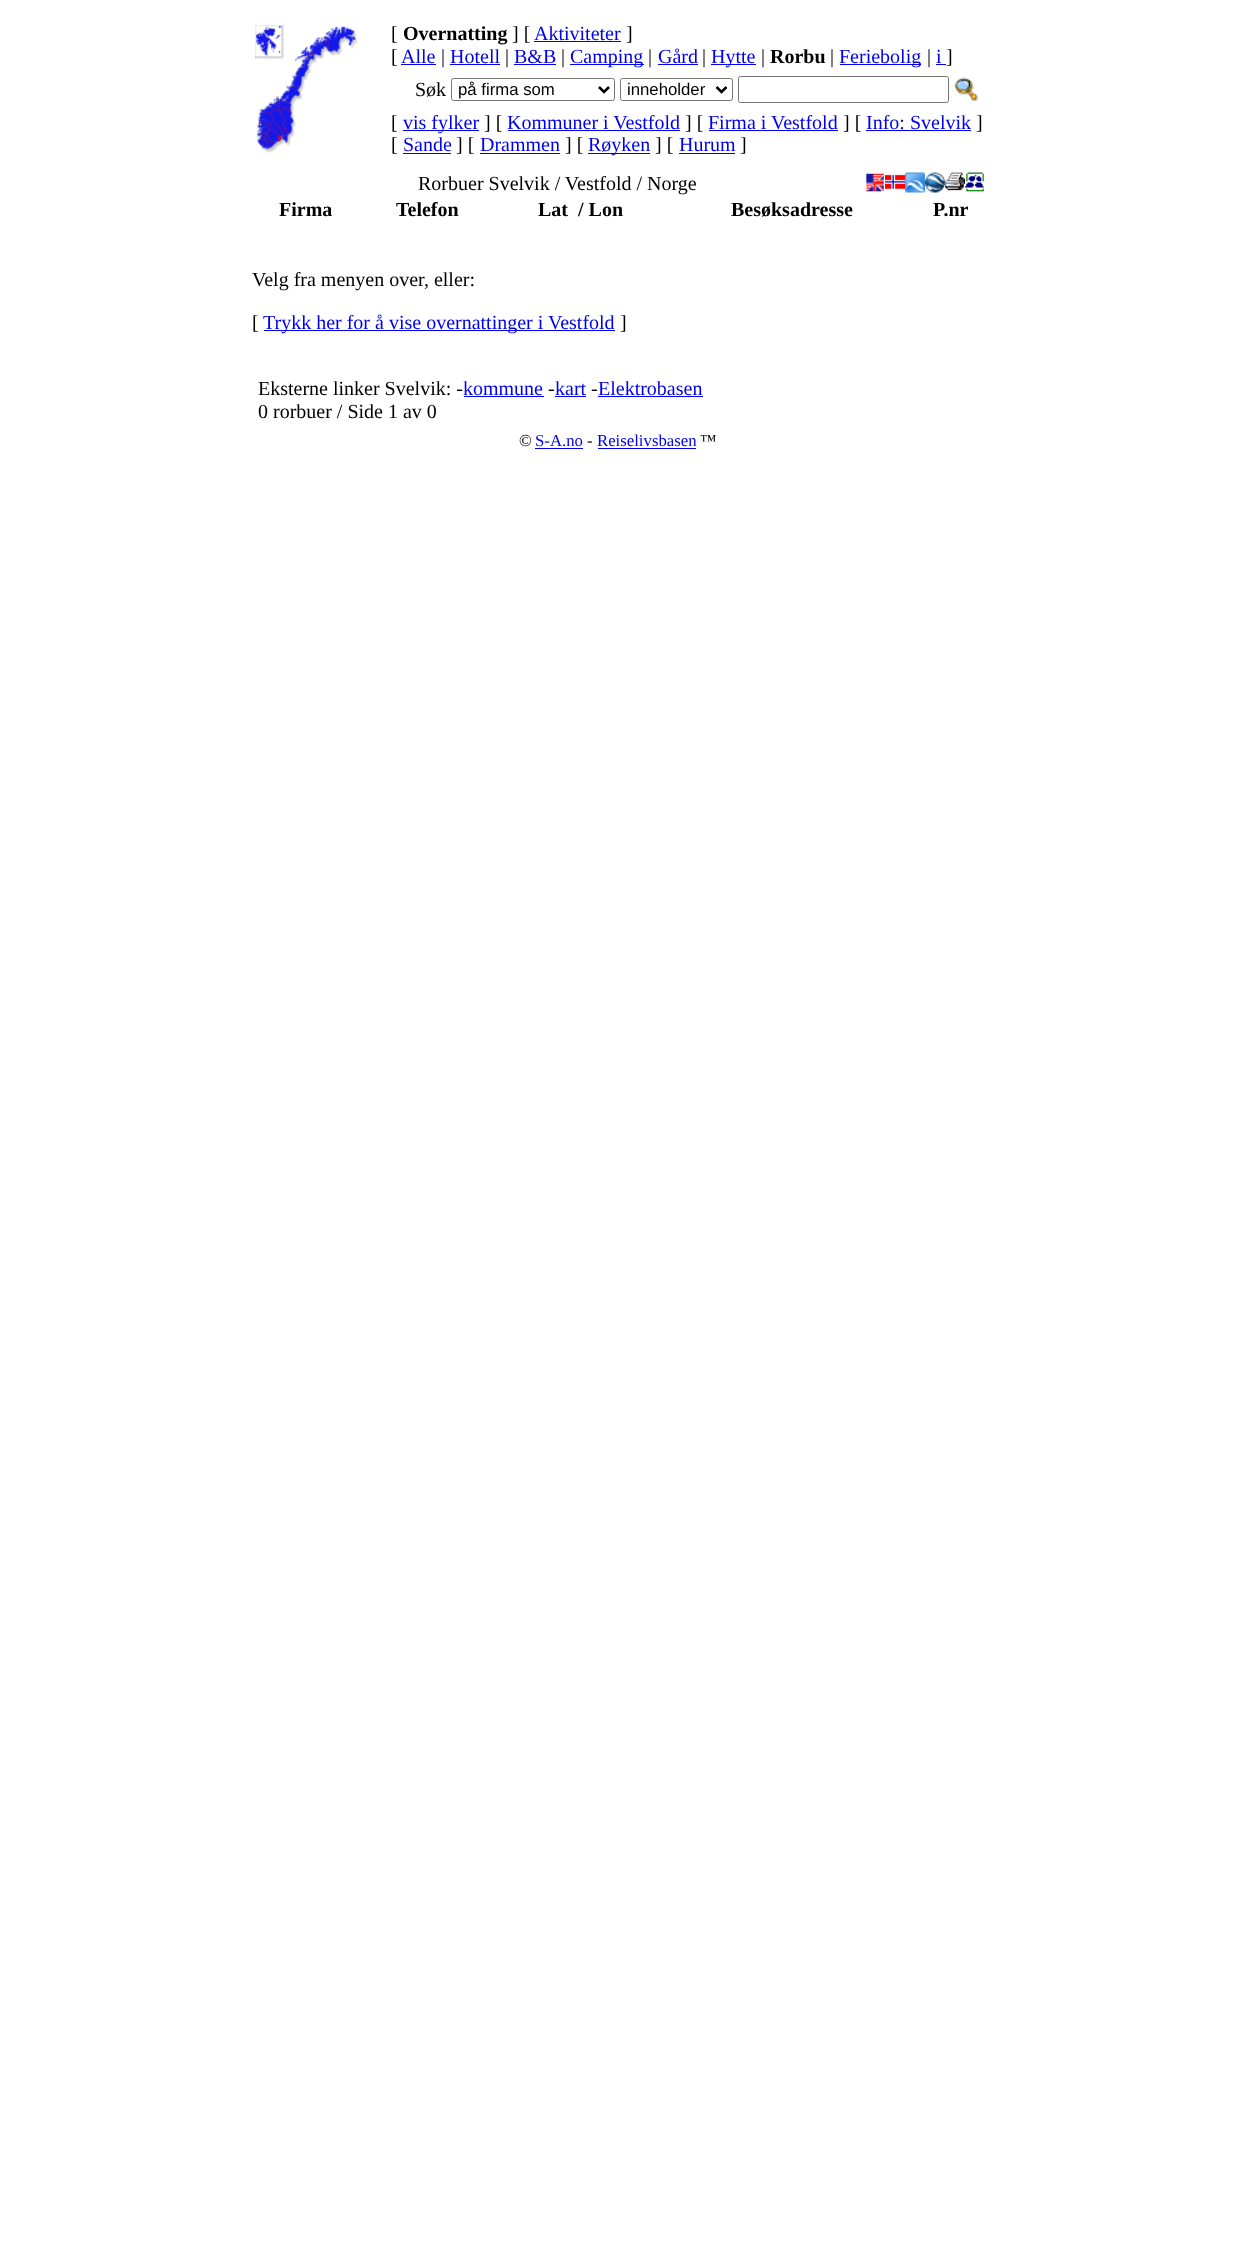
<svg xmlns="http://www.w3.org/2000/svg" width="1234" height="2266">
<rect width="100%" height="100%" fill="#fff"/>
<image x="255" y="25" width="103" height="128" href="media/1.png"/>
<image x="278" y="136" width="4" height="6" href="media/2.png"/>
<text x="391" y="40" style="font-family:Liberation Serif;font-size:20px;fill:#000">[</text>
<text x="403" y="40" style="font-family:Liberation Serif;font-size:20px;font-weight:bold;fill:#000">Overnatting</text>
<text x="512" y="40" style="font-family:Liberation Serif;font-size:20px;fill:#000">] [</text>
<text x="534" y="40" style="font-family:Liberation Serif;font-size:20px;fill:#00e">Aktiviteter</text>
<rect x="534" y="41" width="87" height="1" fill="#00e"/>
<text x="626" y="40" style="font-family:Liberation Serif;font-size:20px;fill:#000">]</text>
<text x="391" y="63" style="font-family:Liberation Serif;font-size:20px;fill:#000">[</text>
<text x="401" y="63" style="font-family:Liberation Serif;font-size:20px;fill:#00e">Alle</text>
<rect x="401" y="64" width="35" height="1" fill="#00e"/>
<text x="441" y="63" style="font-family:Liberation Serif;font-size:20px;fill:#000">|</text>
<text x="450" y="63" style="font-family:Liberation Serif;font-size:20px;fill:#00e">Hotell</text>
<rect x="450" y="64" width="50" height="1" fill="#00e"/>
<text x="505" y="63" style="font-family:Liberation Serif;font-size:20px;fill:#000">|</text>
<text x="514" y="63" style="font-family:Liberation Serif;font-size:20px;fill:#00e">B&amp;B</text>
<rect x="514" y="64" width="42" height="1" fill="#00e"/>
<text x="561" y="63" style="font-family:Liberation Serif;font-size:20px;fill:#000">|</text>
<rect x="570" y="64" width="74" height="1" fill="#00e"/>
<text x="570" y="63" style="font-family:Liberation Serif;font-size:20px;fill:#00e">Camping</text>
<text x="648" y="63" style="font-family:Liberation Serif;font-size:20px;fill:#000">|</text>
<text x="658" y="63" style="font-family:Liberation Serif;font-size:20px;fill:#00e">Gård</text>
<rect x="658" y="64" width="40" height="1" fill="#00e"/>
<text x="702" y="63" style="font-family:Liberation Serif;font-size:20px;fill:#000">|</text>
<rect x="711" y="64" width="45" height="1" fill="#00e"/>
<text x="711" y="63" style="font-family:Liberation Serif;font-size:20px;fill:#00e">Hytte</text>
<text x="761" y="63" style="font-family:Liberation Serif;font-size:20px;fill:#000">|</text>
<text x="770" y="63" style="font-family:Liberation Serif;font-size:20px;font-weight:bold;fill:#000">Rorbu</text>
<text x="830" y="63" style="font-family:Liberation Serif;font-size:20px;fill:#000">|</text>
<rect x="840" y="64" width="81" height="1" fill="#00e"/>
<text x="839" y="63" style="font-family:Liberation Serif;font-size:20px;fill:#00e">Feriebolig</text>
<text x="927" y="63" style="font-family:Liberation Serif;font-size:20px;fill:#000">|</text>
<text x="936" y="63" style="font-family:Liberation Serif;font-size:20px;fill:#00e">i</text>
<rect x="936" y="64" width="10" height="1" fill="#00e"/>
<text x="946" y="63" style="font-family:Liberation Serif;font-size:20px;fill:#000">]</text>
<text x="415" y="96" style="font-family:Liberation Serif;font-size:20px;fill:#000">Søk</text>
<rect x="451.5" y="78.5" width="163" height="22" rx="2" fill="none" stroke="#767676"/>
<path d="M599 87l5 5l5-5" fill="none" stroke="#000" stroke-width="2.5"/>
<text x="458" y="95" style="font-family:Liberation Sans;font-size:16.75px;fill:#000">på firma som</text>
<rect x="620.5" y="78.5" width="112" height="22" rx="2" fill="none" stroke="#767676"/>
<path d="M716.5 87l5 5l5-5" fill="none" stroke="#000" stroke-width="2.5"/>
<text x="627" y="95" style="font-family:Liberation Sans;font-size:16.75px;fill:#000">inneholder</text>
<rect x="738.5" y="76.5" width="210" height="26" rx="2" fill="none" stroke="#767676"/>
<image x="954" y="77" width="24" height="25" href="media/3.png"/>
<text x="391" y="129" style="font-family:Liberation Serif;font-size:20px;fill:#000">[</text>
<rect x="403" y="130" width="76" height="1" fill="#00e"/>
<text x="403" y="129" style="font-family:Liberation Serif;font-size:20px;fill:#00e">vis fylker</text>
<text x="484" y="129" style="font-family:Liberation Serif;font-size:20px;fill:#000">] [</text>
<text x="507" y="129" style="font-family:Liberation Serif;font-size:20px;fill:#00e">Kommuner i Vestfold</text>
<rect x="508" y="130" width="172" height="1" fill="#00e"/>
<text x="685" y="129" style="font-family:Liberation Serif;font-size:20px;fill:#000">] [</text>
<text x="708" y="129" style="font-family:Liberation Serif;font-size:20px;fill:#00e">Firma i Vestfold</text>
<rect x="709" y="130" width="129" height="1" fill="#00e"/>
<text x="843" y="129" style="font-family:Liberation Serif;font-size:20px;fill:#000">] [</text>
<text x="866" y="129" style="font-family:Liberation Serif;font-size:20px;fill:#00e">Info: Svelvik</text>
<rect x="866" y="130" width="105" height="1" fill="#00e"/>
<text x="976" y="129" style="font-family:Liberation Serif;font-size:20px;fill:#000">]</text>
<text x="391" y="151" style="font-family:Liberation Serif;font-size:20px;fill:#000">[</text>
<text x="403" y="151" style="font-family:Liberation Serif;font-size:20px;fill:#00e">Sande</text>
<rect x="403" y="153" width="48" height="1" fill="#00e"/>
<text x="456" y="151" style="font-family:Liberation Serif;font-size:20px;fill:#000">] [</text>
<text x="480" y="151" style="font-family:Liberation Serif;font-size:20px;fill:#00e">Drammen</text>
<rect x="480" y="153" width="80" height="1" fill="#00e"/>
<text x="565" y="151" style="font-family:Liberation Serif;font-size:20px;fill:#000">] [</text>
<rect x="588" y="153" width="62" height="1" fill="#00e"/>
<text x="588" y="151" style="font-family:Liberation Serif;font-size:20px;fill:#00e">Røyken</text>
<text x="655" y="151" style="font-family:Liberation Serif;font-size:20px;fill:#000">] [</text>
<text x="679" y="151" style="font-family:Liberation Serif;font-size:20px;fill:#00e">Hurum</text>
<rect x="679" y="153" width="56" height="1" fill="#00e"/>
<text x="740" y="151" style="font-family:Liberation Serif;font-size:20px;fill:#000">]</text>
<text x="418" y="190" style="font-family:Liberation Serif;font-size:20px;fill:#000">Rorbuer Svelvik / Vestfold / Norge</text>
<image x="866" y="173" width="18" height="19" href="media/4.png"/>
<image x="885" y="174" width="20" height="15" href="media/5.png"/>
<image x="905" y="172" width="20" height="21" href="media/6.png"/>
<image x="925" y="172" width="20" height="21" href="media/7.png"/>
<image x="945" y="172" width="20" height="19" href="media/8.png"/>
<image x="965" y="172" width="19" height="20" href="media/9.png"/>
<text x="279" y="216" style="font-family:Liberation Serif;font-size:20px;font-weight:bold;fill:#000">Firma</text>
<text x="396" y="216" style="font-family:Liberation Serif;font-size:20px;font-weight:bold;fill:#000">Telefon</text>
<text x="538" y="216" style="font-family:Liberation Serif;font-size:20px;font-weight:bold;fill:#000" xml:space="preserve">Lat  / Lon</text>
<text x="731" y="216" style="font-family:Liberation Serif;font-size:20px;font-weight:bold;fill:#000">Besøksadresse</text>
<text x="933" y="216" style="font-family:Liberation Serif;font-size:20px;font-weight:bold;fill:#000">P.nr</text>
<text x="252" y="286" style="font-family:Liberation Serif;font-size:20px;fill:#000">Velg fra menyen over, eller:</text>
<text x="252" y="329" style="font-family:Liberation Serif;font-size:20px;fill:#000">[</text>
<rect x="264" y="330" width="351" height="1" fill="#00e"/>
<text x="263" y="329" style="font-family:Liberation Serif;font-size:20px;fill:#00e">Trykk her for å vise overnattinger i Vestfold</text>
<text x="620" y="329" style="font-family:Liberation Serif;font-size:20px;fill:#000">]</text>
<text x="258" y="395" style="font-family:Liberation Serif;font-size:20px;fill:#000">Eksterne linker Svelvik: -</text>
<text x="463" y="395" style="font-family:Liberation Serif;font-size:20px;fill:#00e">kommune</text>
<rect x="464" y="396" width="80" height="1" fill="#00e"/>
<text x="548" y="395" style="font-family:Liberation Serif;font-size:20px;fill:#000">-</text>
<text x="555" y="395" style="font-family:Liberation Serif;font-size:20px;fill:#00e">kart</text>
<rect x="555" y="396" width="31" height="1" fill="#00e"/>
<text x="591" y="395" style="font-family:Liberation Serif;font-size:20px;fill:#000">-</text>
<text x="598" y="395" style="font-family:Liberation Serif;font-size:20px;fill:#00e">Elektrobasen</text>
<rect x="598" y="396" width="105" height="1" fill="#00e"/>
<text x="258" y="418" style="font-family:Liberation Serif;font-size:20px;fill:#000">0 rorbuer / Side 1 av 0</text>
<text x="519" y="446" style="font-family:Liberation Serif;font-size:16.75px;fill:#000">©</text>
<text x="535" y="446" style="font-family:Liberation Serif;font-size:16.75px;fill:#00e">S-A.no</text>
<rect x="535" y="448" width="48" height="1" fill="#00e"/>
<text x="587" y="446" style="font-family:Liberation Serif;font-size:16.75px;fill:#000">-</text>
<text x="597" y="446" style="font-family:Liberation Serif;font-size:16.75px;fill:#00e">Reiselivsbasen</text>
<rect x="598" y="448" width="98" height="1" fill="#00e"/>
<text x="700" y="446" style="font-family:Liberation Serif;font-size:16.75px;fill:#000">™</text>
</svg>
